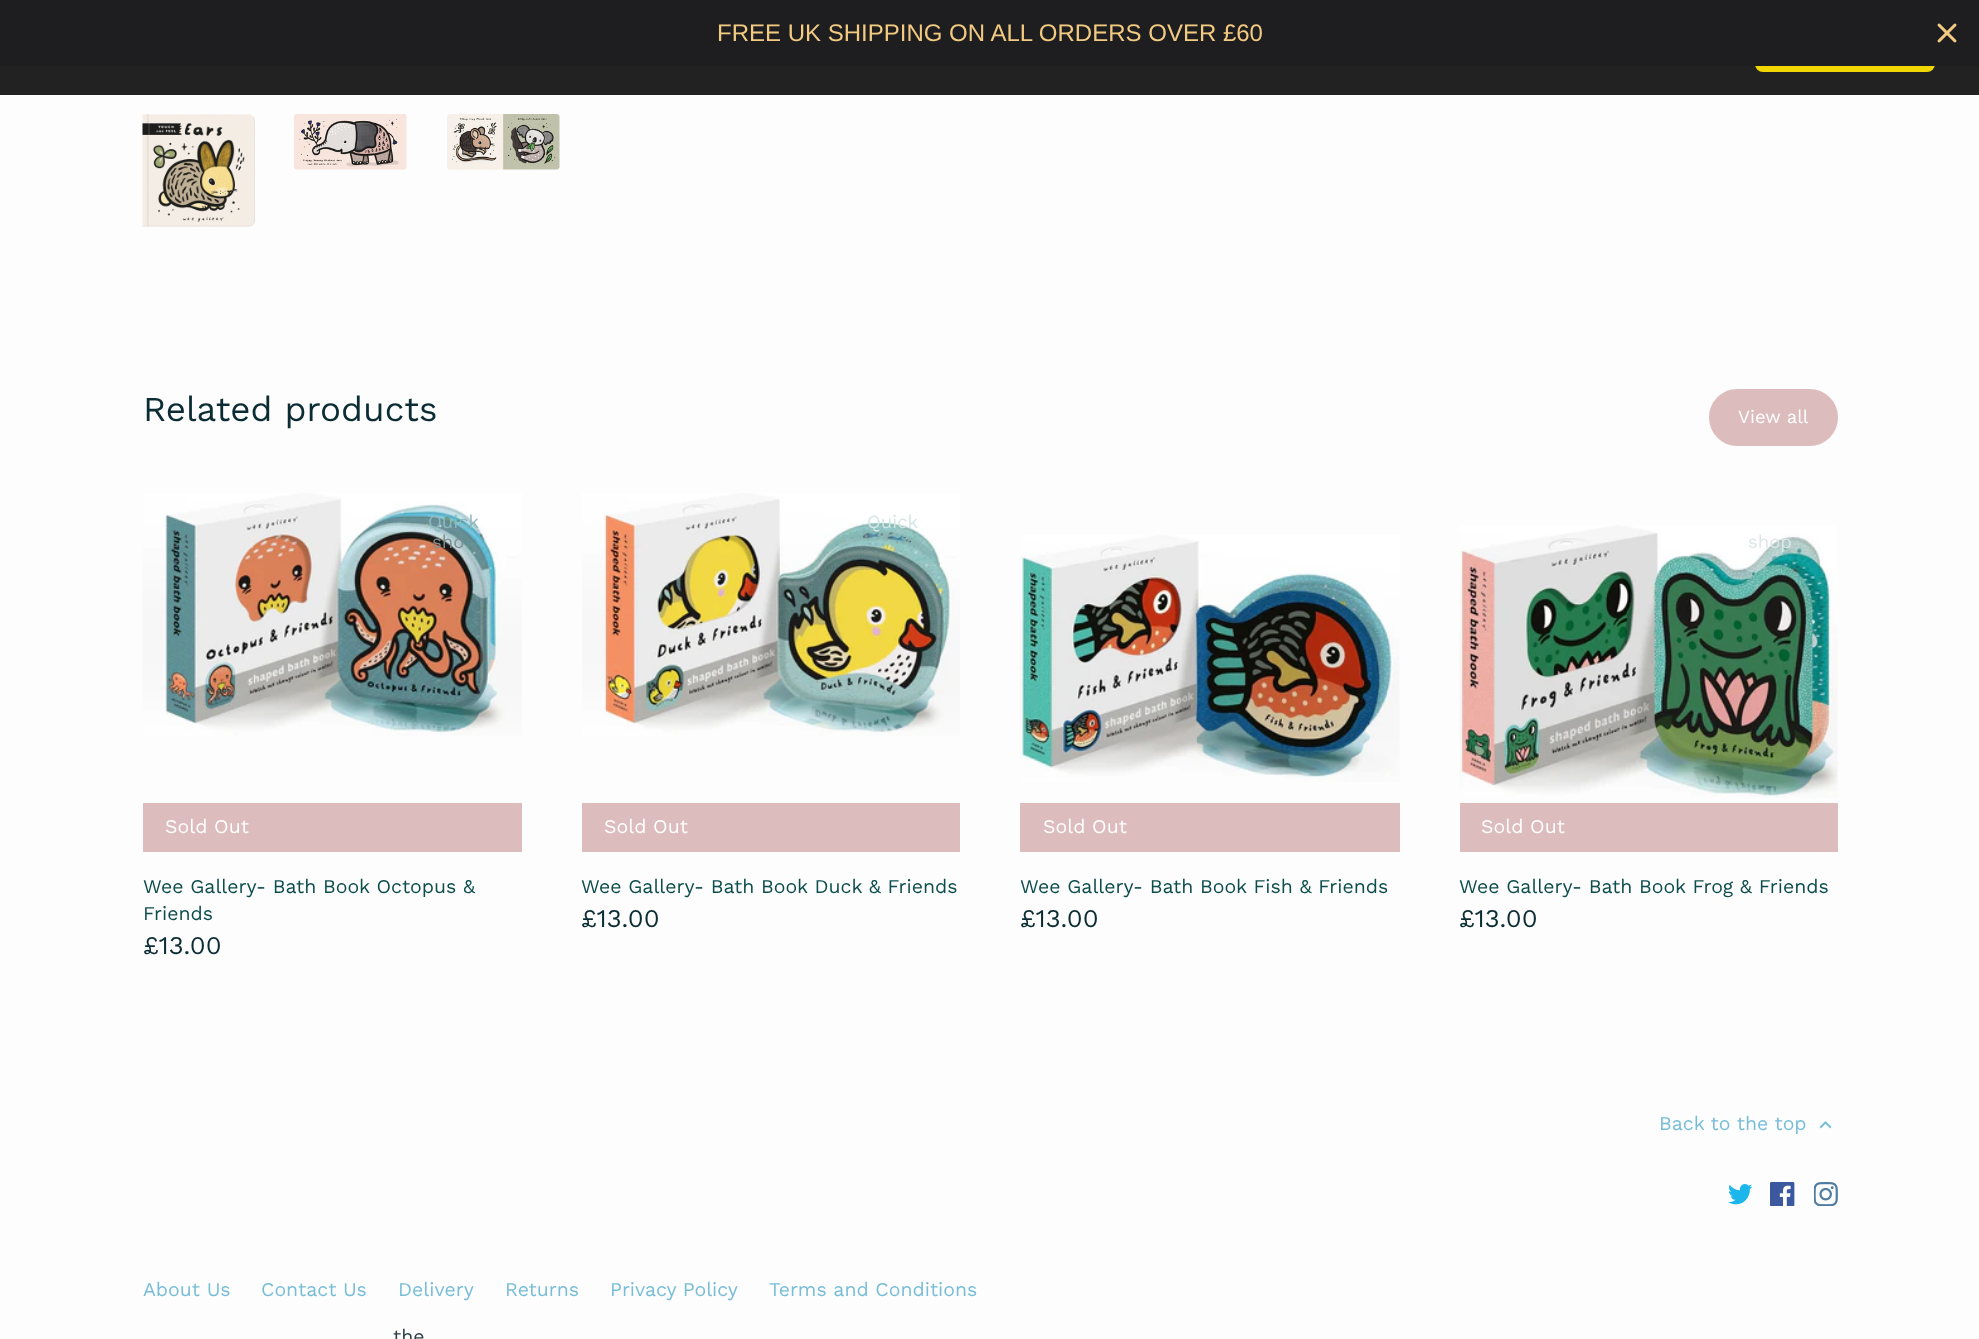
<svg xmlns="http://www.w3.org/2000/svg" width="1979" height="1339">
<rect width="100%" height="100%" fill="#fdfdfd"/>
<rect y="66" width="1979" height="29" fill="#222"/>
<rect x="1755" y="23" width="180" height="49" rx="8" fill="#f1d600"/>
<rect width="1979" height="66" fill="#1e1e20"/>
<text x="717" y="41" style="font-family:Liberation Sans;font-size:24px;fill:#f2ca80">FREE UK SHIPPING ON ALL ORDERS OVER £60</text>
<image x="1937" y="23" width="20" height="20" href="media/1.png"/>
<image x="142" y="114" width="113" height="113" href="media/2.png"/>
<image x="294" y="114" width="113" height="56" href="media/3.png"/>
<image x="447" y="114" width="113" height="56" href="media/4.png"/>
<text x="143" y="421" style="font-family:Work Sans;font-size:35px;fill:#0b2c33">Related products</text>
<rect x="1710.5" y="390.5" width="126" height="54" rx="27" fill="#dcbcbc" stroke="#dcbcbc" stroke-width="3"/>
<text x="1738" y="423" style="font-family:Work Sans;font-size:18.5px;fill:#fff">View all</text>
<image x="142" y="493" width="380" height="243" href="media/5.png"/>
<text x="428" y="528" style="font-family:Work Sans;font-size:18.5px;fill:#8fb9c0">Quick</text>
<text x="432" y="548" style="font-family:Work Sans;font-size:18.5px;fill:#7f8d8d">sho</text>
<rect x="143" y="803" width="379" height="49" fill="#dcbcbc"/>
<text x="165" y="833" style="font-family:Work Sans;font-size:19.5px;fill:#fff">Sold Out</text>
<text x="143" y="893" style="font-family:Work Sans;font-size:19.5px;fill:#0c4c4c">Wee Gallery- Bath Book Octopus &amp;</text>
<text x="143" y="920" style="font-family:Work Sans;font-size:19.5px;fill:#0c4c4c">Friends</text>
<text x="143" y="954" style="font-family:Work Sans;font-size:25.5px;fill:#0b2c33">£13.00</text>
<image x="582" y="493" width="378" height="243" href="media/6.png"/>
<text x="867" y="528" style="font-family:Work Sans;font-size:18.5px;fill:#d4e7e5">Quick</text>
<rect x="582" y="803" width="378" height="49" fill="#dcbcbc"/>
<text x="604" y="833" style="font-family:Work Sans;font-size:19.5px;fill:#fff">Sold Out</text>
<text x="581" y="893" style="font-family:Work Sans;font-size:19.5px;fill:#0c4c4c">Wee Gallery- Bath Book Duck &amp; Friends</text>
<text x="581" y="927" style="font-family:Work Sans;font-size:25.5px;fill:#0b2c33">£13.00</text>
<image x="1020" y="535" width="380" height="247" href="media/7.png"/>
<rect x="1020" y="803" width="380" height="49" fill="#dcbcbc"/>
<text x="1043" y="833" style="font-family:Work Sans;font-size:19.5px;fill:#fff">Sold Out</text>
<text x="1020" y="893" style="font-family:Work Sans;font-size:19.5px;fill:#0c4c4c">Wee Gallery- Bath Book Fish &amp; Friends</text>
<text x="1020" y="927" style="font-family:Work Sans;font-size:25.5px;fill:#0b2c33">£13.00</text>
<image x="1459" y="525" width="379" height="273" href="media/8.png"/>
<text x="1748" y="548" style="font-family:Work Sans;font-size:18.5px;fill:#dde7e6">shop</text>
<rect x="1460" y="803" width="378" height="49" fill="#dcbcbc"/>
<text x="1481" y="833" style="font-family:Work Sans;font-size:19.5px;fill:#fff">Sold Out</text>
<text x="1459" y="893" style="font-family:Work Sans;font-size:19.5px;fill:#0c4c4c">Wee Gallery- Bath Book Frog &amp; Friends</text>
<text x="1459" y="927" style="font-family:Work Sans;font-size:25.5px;fill:#0b2c33">£13.00</text>
<text x="1659" y="1130" style="font-family:Work Sans;font-size:19.5px;fill:#77bdd7">Back to the top</text>
<image x="1819" y="1121" width="13" height="8" href="media/9.png"/>
<image x="1728" y="1184" width="24" height="21" href="media/10.png"/>
<image x="1770" y="1182" width="25" height="24" href="media/11.png"/>
<image x="1814" y="1182" width="24" height="24" href="media/12.png"/>
<text x="143" y="1296" style="font-family:Work Sans;font-size:19.5px;fill:#77bdd7">About Us</text>
<text x="261" y="1296" style="font-family:Work Sans;font-size:19.5px;fill:#77bdd7">Contact Us</text>
<text x="398" y="1296" style="font-family:Work Sans;font-size:19.5px;fill:#77bdd7">Delivery</text>
<text x="505" y="1296" style="font-family:Work Sans;font-size:19.5px;fill:#77bdd7">Returns</text>
<text x="610" y="1296" style="font-family:Work Sans;font-size:19.5px;fill:#77bdd7">Privacy Policy</text>
<text x="769" y="1296" style="font-family:Work Sans;font-size:19.5px;fill:#77bdd7">Terms and Conditions</text>
<text x="393" y="1343" style="font-family:Work Sans;font-size:19.5px;fill:#2d3e42">the</text>
</svg>
